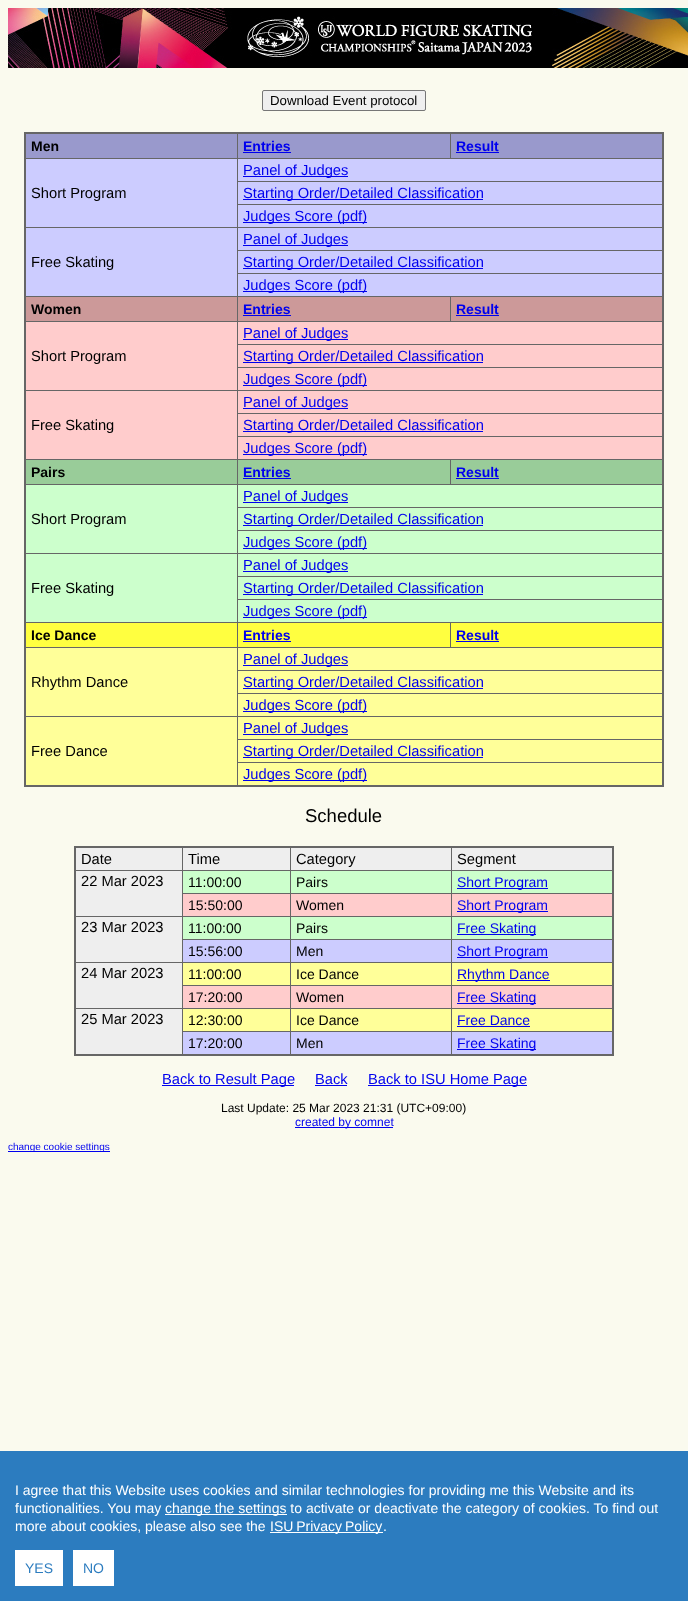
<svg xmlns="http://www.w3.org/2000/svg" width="688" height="1601">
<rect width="100%" height="100%" fill="#fafaee"/>
<image x="8" y="8" width="680" height="60" href="media/1.png"/>
<rect x="262.5" y="90.5" width="163" height="20" rx="1.5" fill="#efefef" stroke="#767676"/>
<text x="270" y="105" style="font-family:Liberation Sans;font-size:13.25px;fill:#000">Download Event protocol</text>
<rect x="237" y="158" width="427" height="1" fill="#666"/>
<rect x="26" y="159" width="636" height="68" fill="#ccf"/>
<rect x="237" y="181" width="427" height="1" fill="#666"/>
<rect x="237" y="204" width="427" height="1" fill="#666"/>
<rect x="237" y="227" width="427" height="1" fill="#666"/>
<rect x="26" y="228" width="636" height="68" fill="#ccf"/>
<rect x="237" y="250" width="427" height="1" fill="#666"/>
<rect x="237" y="273" width="427" height="1" fill="#666"/>
<rect x="450" y="296" width="214" height="1" fill="#666"/>
<rect x="237" y="321" width="427" height="1" fill="#666"/>
<rect x="450" y="296" width="1" height="26" fill="#666"/>
<rect x="237" y="296" width="214" height="1" fill="#666"/>
<rect x="26" y="322" width="636" height="68" fill="#fcc"/>
<rect x="237" y="344" width="427" height="1" fill="#666"/>
<rect x="237" y="367" width="427" height="1" fill="#666"/>
<rect x="237" y="390" width="427" height="1" fill="#666"/>
<rect x="26" y="391" width="636" height="68" fill="#fcc"/>
<rect x="237" y="413" width="427" height="1" fill="#666"/>
<rect x="237" y="436" width="427" height="1" fill="#666"/>
<rect x="450" y="459" width="214" height="1" fill="#666"/>
<rect x="237" y="484" width="427" height="1" fill="#666"/>
<rect x="450" y="459" width="1" height="26" fill="#666"/>
<rect x="237" y="459" width="214" height="1" fill="#666"/>
<rect x="26" y="485" width="636" height="68" fill="#cfc"/>
<rect x="237" y="507" width="427" height="1" fill="#666"/>
<rect x="237" y="530" width="427" height="1" fill="#666"/>
<rect x="237" y="553" width="427" height="1" fill="#666"/>
<rect x="26" y="554" width="636" height="68" fill="#cfc"/>
<rect x="237" y="576" width="427" height="1" fill="#666"/>
<rect x="237" y="599" width="427" height="1" fill="#666"/>
<rect x="450" y="622" width="214" height="1" fill="#666"/>
<rect x="237" y="647" width="427" height="1" fill="#666"/>
<rect x="450" y="622" width="1" height="26" fill="#666"/>
<rect x="237" y="622" width="214" height="1" fill="#666"/>
<rect x="26" y="648" width="636" height="68" fill="#ff9"/>
<rect x="237" y="670" width="427" height="1" fill="#666"/>
<rect x="237" y="693" width="427" height="1" fill="#666"/>
<rect x="237" y="716" width="427" height="1" fill="#666"/>
<rect x="26" y="717" width="636" height="68" fill="#ff9"/>
<rect x="237" y="739" width="427" height="1" fill="#666"/>
<rect x="237" y="762" width="427" height="1" fill="#666"/>
<rect x="237" y="762" width="1" height="24" fill="#666"/>
<rect x="237" y="739" width="1" height="24" fill="#666"/>
<rect x="237" y="716" width="1" height="24" fill="#666"/>
<rect x="25" y="716" width="213" height="1" fill="#666"/>
<rect x="237" y="693" width="1" height="24" fill="#666"/>
<rect x="237" y="670" width="1" height="24" fill="#666"/>
<rect x="237" y="647" width="1" height="24" fill="#666"/>
<rect x="25" y="647" width="213" height="1" fill="#666"/>
<rect x="237" y="622" width="1" height="26" fill="#666"/>
<rect x="25" y="622" width="213" height="1" fill="#666"/>
<rect x="237" y="599" width="1" height="24" fill="#666"/>
<rect x="237" y="576" width="1" height="24" fill="#666"/>
<rect x="237" y="553" width="1" height="24" fill="#666"/>
<rect x="25" y="553" width="213" height="1" fill="#666"/>
<rect x="237" y="530" width="1" height="24" fill="#666"/>
<rect x="237" y="507" width="1" height="24" fill="#666"/>
<rect x="237" y="484" width="1" height="24" fill="#666"/>
<rect x="25" y="484" width="213" height="1" fill="#666"/>
<rect x="237" y="459" width="1" height="26" fill="#666"/>
<rect x="25" y="459" width="213" height="1" fill="#666"/>
<rect x="237" y="436" width="1" height="24" fill="#666"/>
<rect x="237" y="413" width="1" height="24" fill="#666"/>
<rect x="237" y="390" width="1" height="24" fill="#666"/>
<rect x="25" y="390" width="213" height="1" fill="#666"/>
<rect x="237" y="367" width="1" height="24" fill="#666"/>
<rect x="237" y="344" width="1" height="24" fill="#666"/>
<rect x="237" y="321" width="1" height="24" fill="#666"/>
<rect x="25" y="321" width="213" height="1" fill="#666"/>
<rect x="237" y="296" width="1" height="26" fill="#666"/>
<rect x="25" y="296" width="213" height="1" fill="#666"/>
<rect x="237" y="273" width="1" height="24" fill="#666"/>
<rect x="237" y="250" width="1" height="24" fill="#666"/>
<rect x="237" y="227" width="1" height="24" fill="#666"/>
<rect x="25" y="227" width="213" height="1" fill="#666"/>
<rect x="237" y="204" width="1" height="24" fill="#666"/>
<rect x="237" y="181" width="1" height="24" fill="#666"/>
<rect x="237" y="158" width="1" height="24" fill="#666"/>
<rect x="25" y="158" width="213" height="1" fill="#666"/>
<rect x="237" y="132" width="1" height="27" fill="#666"/>
<rect x="450" y="132" width="1" height="27" fill="#666"/>
<rect x="24" y="132" width="640" height="2" fill="#666"/>
<rect x="662" y="132" width="2" height="655" fill="#666"/>
<rect x="24" y="785" width="640" height="2" fill="#666"/>
<rect x="24" y="132" width="2" height="655" fill="#666"/>
<rect x="26" y="134" width="211" height="24" fill="#99c"/>
<text x="31" y="151" style="font-family:Liberation Sans;font-size:14px;font-weight:bold;fill:#000">Men</text>
<rect x="238" y="134" width="212" height="24" fill="#99c"/>
<text x="243" y="151" style="font-family:Liberation Sans;font-size:14px;font-weight:bold;fill:#00e">Entries</text>
<rect x="243" y="152" width="48" height="1" fill="#00e"/>
<rect x="451" y="134" width="211" height="24" fill="#99c"/>
<text x="456" y="151" style="font-family:Liberation Sans;font-size:14px;font-weight:bold;fill:#00e">Result</text>
<rect x="456" y="152" width="43" height="1" fill="#00e"/>
<rect x="243" y="176" width="105" height="1" fill="#00e"/>
<text x="243" y="175" style="font-family:Liberation Sans;font-size:14.7px;fill:#00e">Panel of Judges</text>
<text x="31" y="198" style="font-family:Liberation Sans;font-size:14.7px;fill:#000">Short Program</text>
<rect x="243" y="199" width="240" height="1" fill="#00e"/>
<text x="243" y="198" style="font-family:Liberation Sans;font-size:14.7px;fill:#00e">Starting Order/Detailed Classification</text>
<rect x="243" y="222" width="124" height="1" fill="#00e"/>
<text x="243" y="221" style="font-family:Liberation Sans;font-size:14.7px;fill:#00e">Judges Score (pdf)</text>
<rect x="243" y="245" width="105" height="1" fill="#00e"/>
<text x="243" y="244" style="font-family:Liberation Sans;font-size:14.7px;fill:#00e">Panel of Judges</text>
<text x="31" y="267" style="font-family:Liberation Sans;font-size:14.7px;fill:#000">Free Skating</text>
<rect x="243" y="268" width="240" height="1" fill="#00e"/>
<text x="243" y="267" style="font-family:Liberation Sans;font-size:14.7px;fill:#00e">Starting Order/Detailed Classification</text>
<rect x="243" y="291" width="124" height="1" fill="#00e"/>
<text x="243" y="290" style="font-family:Liberation Sans;font-size:14.7px;fill:#00e">Judges Score (pdf)</text>
<rect x="26" y="297" width="211" height="24" fill="#c99"/>
<text x="31" y="314" style="font-family:Liberation Sans;font-size:14px;font-weight:bold;fill:#000">Women</text>
<rect x="238" y="297" width="212" height="24" fill="#c99"/>
<text x="243" y="314" style="font-family:Liberation Sans;font-size:14px;font-weight:bold;fill:#00e">Entries</text>
<rect x="243" y="315" width="48" height="1" fill="#00e"/>
<rect x="451" y="297" width="211" height="24" fill="#c99"/>
<text x="456" y="314" style="font-family:Liberation Sans;font-size:14px;font-weight:bold;fill:#00e">Result</text>
<rect x="456" y="315" width="43" height="1" fill="#00e"/>
<rect x="243" y="339" width="105" height="1" fill="#00e"/>
<text x="243" y="338" style="font-family:Liberation Sans;font-size:14.7px;fill:#00e">Panel of Judges</text>
<text x="31" y="361" style="font-family:Liberation Sans;font-size:14.7px;fill:#000">Short Program</text>
<rect x="243" y="362" width="240" height="1" fill="#00e"/>
<text x="243" y="361" style="font-family:Liberation Sans;font-size:14.7px;fill:#00e">Starting Order/Detailed Classification</text>
<rect x="243" y="385" width="124" height="1" fill="#00e"/>
<text x="243" y="384" style="font-family:Liberation Sans;font-size:14.7px;fill:#00e">Judges Score (pdf)</text>
<rect x="243" y="408" width="105" height="1" fill="#00e"/>
<text x="243" y="407" style="font-family:Liberation Sans;font-size:14.7px;fill:#00e">Panel of Judges</text>
<text x="31" y="430" style="font-family:Liberation Sans;font-size:14.7px;fill:#000">Free Skating</text>
<rect x="243" y="431" width="240" height="1" fill="#00e"/>
<text x="243" y="430" style="font-family:Liberation Sans;font-size:14.7px;fill:#00e">Starting Order/Detailed Classification</text>
<rect x="243" y="454" width="124" height="1" fill="#00e"/>
<text x="243" y="453" style="font-family:Liberation Sans;font-size:14.7px;fill:#00e">Judges Score (pdf)</text>
<rect x="26" y="460" width="211" height="24" fill="#9c9"/>
<text x="31" y="477" style="font-family:Liberation Sans;font-size:14px;font-weight:bold;fill:#000">Pairs</text>
<rect x="238" y="460" width="212" height="24" fill="#9c9"/>
<text x="243" y="477" style="font-family:Liberation Sans;font-size:14px;font-weight:bold;fill:#00e">Entries</text>
<rect x="243" y="478" width="48" height="1" fill="#00e"/>
<rect x="451" y="460" width="211" height="24" fill="#9c9"/>
<text x="456" y="477" style="font-family:Liberation Sans;font-size:14px;font-weight:bold;fill:#00e">Result</text>
<rect x="456" y="478" width="43" height="1" fill="#00e"/>
<rect x="243" y="502" width="105" height="1" fill="#00e"/>
<text x="243" y="501" style="font-family:Liberation Sans;font-size:14.7px;fill:#00e">Panel of Judges</text>
<text x="31" y="524" style="font-family:Liberation Sans;font-size:14.7px;fill:#000">Short Program</text>
<rect x="243" y="525" width="240" height="1" fill="#00e"/>
<text x="243" y="524" style="font-family:Liberation Sans;font-size:14.7px;fill:#00e">Starting Order/Detailed Classification</text>
<rect x="243" y="548" width="124" height="1" fill="#00e"/>
<text x="243" y="547" style="font-family:Liberation Sans;font-size:14.7px;fill:#00e">Judges Score (pdf)</text>
<rect x="243" y="571" width="105" height="1" fill="#00e"/>
<text x="243" y="570" style="font-family:Liberation Sans;font-size:14.7px;fill:#00e">Panel of Judges</text>
<text x="31" y="593" style="font-family:Liberation Sans;font-size:14.7px;fill:#000">Free Skating</text>
<rect x="243" y="594" width="240" height="1" fill="#00e"/>
<text x="243" y="593" style="font-family:Liberation Sans;font-size:14.7px;fill:#00e">Starting Order/Detailed Classification</text>
<rect x="243" y="617" width="124" height="1" fill="#00e"/>
<text x="243" y="616" style="font-family:Liberation Sans;font-size:14.7px;fill:#00e">Judges Score (pdf)</text>
<rect x="26" y="623" width="211" height="24" fill="#ffff40"/>
<text x="31" y="640" style="font-family:Liberation Sans;font-size:14px;font-weight:bold;fill:#000">Ice Dance</text>
<rect x="238" y="623" width="212" height="24" fill="#ffff40"/>
<text x="243" y="640" style="font-family:Liberation Sans;font-size:14px;font-weight:bold;fill:#00e">Entries</text>
<rect x="243" y="641" width="48" height="1" fill="#00e"/>
<rect x="451" y="623" width="211" height="24" fill="#ffff40"/>
<text x="456" y="640" style="font-family:Liberation Sans;font-size:14px;font-weight:bold;fill:#00e">Result</text>
<rect x="456" y="641" width="43" height="1" fill="#00e"/>
<rect x="243" y="665" width="105" height="1" fill="#00e"/>
<text x="243" y="664" style="font-family:Liberation Sans;font-size:14.7px;fill:#00e">Panel of Judges</text>
<text x="31" y="687" style="font-family:Liberation Sans;font-size:14.7px;fill:#000">Rhythm Dance</text>
<rect x="243" y="688" width="240" height="1" fill="#00e"/>
<text x="243" y="687" style="font-family:Liberation Sans;font-size:14.7px;fill:#00e">Starting Order/Detailed Classification</text>
<rect x="243" y="711" width="124" height="1" fill="#00e"/>
<text x="243" y="710" style="font-family:Liberation Sans;font-size:14.7px;fill:#00e">Judges Score (pdf)</text>
<rect x="243" y="734" width="105" height="1" fill="#00e"/>
<text x="243" y="733" style="font-family:Liberation Sans;font-size:14.7px;fill:#00e">Panel of Judges</text>
<text x="31" y="756" style="font-family:Liberation Sans;font-size:14.7px;fill:#000">Free Dance</text>
<rect x="243" y="757" width="240" height="1" fill="#00e"/>
<text x="243" y="756" style="font-family:Liberation Sans;font-size:14.7px;fill:#00e">Starting Order/Detailed Classification</text>
<rect x="243" y="780" width="124" height="1" fill="#00e"/>
<text x="243" y="779" style="font-family:Liberation Sans;font-size:14.7px;fill:#00e">Judges Score (pdf)</text>
<text x="305" y="822" style="font-family:Liberation Sans;font-size:18.5px;fill:#000">Schedule</text>
<rect x="76" y="848" width="536" height="206" fill="#eee"/>
<rect x="451" y="870" width="163" height="1" fill="#666"/>
<rect x="451" y="893" width="163" height="1" fill="#666"/>
<rect x="451" y="916" width="163" height="1" fill="#666"/>
<rect x="451" y="939" width="163" height="1" fill="#666"/>
<rect x="451" y="962" width="163" height="1" fill="#666"/>
<rect x="451" y="985" width="163" height="1" fill="#666"/>
<rect x="451" y="1008" width="163" height="1" fill="#666"/>
<rect x="451" y="1031" width="163" height="1" fill="#666"/>
<rect x="451" y="1031" width="1" height="24" fill="#666"/>
<rect x="290" y="1031" width="162" height="1" fill="#666"/>
<rect x="451" y="1008" width="1" height="24" fill="#666"/>
<rect x="290" y="1008" width="162" height="1" fill="#666"/>
<rect x="451" y="985" width="1" height="24" fill="#666"/>
<rect x="290" y="985" width="162" height="1" fill="#666"/>
<rect x="451" y="962" width="1" height="24" fill="#666"/>
<rect x="290" y="962" width="162" height="1" fill="#666"/>
<rect x="451" y="939" width="1" height="24" fill="#666"/>
<rect x="290" y="939" width="162" height="1" fill="#666"/>
<rect x="451" y="916" width="1" height="24" fill="#666"/>
<rect x="290" y="916" width="162" height="1" fill="#666"/>
<rect x="451" y="893" width="1" height="24" fill="#666"/>
<rect x="290" y="893" width="162" height="1" fill="#666"/>
<rect x="451" y="870" width="1" height="24" fill="#666"/>
<rect x="290" y="870" width="162" height="1" fill="#666"/>
<rect x="290" y="1031" width="1" height="24" fill="#666"/>
<rect x="182" y="1031" width="109" height="1" fill="#666"/>
<rect x="290" y="1008" width="1" height="24" fill="#666"/>
<rect x="182" y="1008" width="109" height="1" fill="#666"/>
<rect x="290" y="985" width="1" height="24" fill="#666"/>
<rect x="182" y="985" width="109" height="1" fill="#666"/>
<rect x="290" y="962" width="1" height="24" fill="#666"/>
<rect x="182" y="962" width="109" height="1" fill="#666"/>
<rect x="290" y="939" width="1" height="24" fill="#666"/>
<rect x="182" y="939" width="109" height="1" fill="#666"/>
<rect x="290" y="916" width="1" height="24" fill="#666"/>
<rect x="182" y="916" width="109" height="1" fill="#666"/>
<rect x="290" y="893" width="1" height="24" fill="#666"/>
<rect x="182" y="893" width="109" height="1" fill="#666"/>
<rect x="290" y="870" width="1" height="24" fill="#666"/>
<rect x="182" y="870" width="109" height="1" fill="#666"/>
<rect x="182" y="1031" width="1" height="24" fill="#666"/>
<rect x="182" y="1008" width="1" height="24" fill="#666"/>
<rect x="75" y="1008" width="108" height="1" fill="#666"/>
<rect x="182" y="985" width="1" height="24" fill="#666"/>
<rect x="182" y="962" width="1" height="24" fill="#666"/>
<rect x="75" y="962" width="108" height="1" fill="#666"/>
<rect x="182" y="939" width="1" height="24" fill="#666"/>
<rect x="182" y="916" width="1" height="24" fill="#666"/>
<rect x="75" y="916" width="108" height="1" fill="#666"/>
<rect x="182" y="893" width="1" height="24" fill="#666"/>
<rect x="182" y="870" width="1" height="24" fill="#666"/>
<rect x="75" y="870" width="108" height="1" fill="#666"/>
<rect x="182" y="846" width="1" height="25" fill="#666"/>
<rect x="290" y="846" width="1" height="25" fill="#666"/>
<rect x="451" y="846" width="1" height="25" fill="#666"/>
<rect x="74" y="846" width="540" height="2" fill="#666"/>
<rect x="612" y="846" width="2" height="210" fill="#666"/>
<rect x="74" y="1054" width="540" height="2" fill="#666"/>
<rect x="74" y="846" width="2" height="210" fill="#666"/>
<text x="81" y="864" style="font-family:Liberation Sans;font-size:14.7px;fill:#000">Date</text>
<text x="188" y="864" style="font-family:Liberation Sans;font-size:14.7px;fill:#000">Time</text>
<text x="296" y="864" style="font-family:Liberation Sans;font-size:14.7px;fill:#000">Category</text>
<text x="457" y="864" style="font-family:Liberation Sans;font-size:14.7px;fill:#000">Segment</text>
<text x="81" y="886" style="font-family:Liberation Sans;font-size:14.7px;fill:#000">22 Mar 2023</text>
<rect x="183" y="871" width="107" height="22" fill="#cfc"/>
<text x="188" y="887" style="font-family:Liberation Sans;font-size:14px;fill:#000">11:00:00</text>
<rect x="291" y="871" width="160" height="22" fill="#cfc"/>
<text x="296" y="887" style="font-family:Liberation Sans;font-size:14px;fill:#000">Pairs</text>
<rect x="452" y="871" width="160" height="22" fill="#cfc"/>
<rect x="457" y="888" width="91" height="1" fill="#00e"/>
<text x="457" y="887" style="font-family:Liberation Sans;font-size:14px;fill:#00e">Short Program</text>
<rect x="183" y="894" width="107" height="22" fill="#fcc"/>
<text x="188" y="910" style="font-family:Liberation Sans;font-size:14px;fill:#000">15:50:00</text>
<rect x="291" y="894" width="160" height="22" fill="#fcc"/>
<text x="296" y="910" style="font-family:Liberation Sans;font-size:14px;fill:#000">Women</text>
<rect x="452" y="894" width="160" height="22" fill="#fcc"/>
<rect x="457" y="911" width="91" height="1" fill="#00e"/>
<text x="457" y="910" style="font-family:Liberation Sans;font-size:14px;fill:#00e">Short Program</text>
<text x="81" y="932" style="font-family:Liberation Sans;font-size:14.7px;fill:#000">23 Mar 2023</text>
<rect x="183" y="917" width="107" height="22" fill="#cfc"/>
<text x="188" y="933" style="font-family:Liberation Sans;font-size:14px;fill:#000">11:00:00</text>
<rect x="291" y="917" width="160" height="22" fill="#cfc"/>
<text x="296" y="933" style="font-family:Liberation Sans;font-size:14px;fill:#000">Pairs</text>
<rect x="452" y="917" width="160" height="22" fill="#cfc"/>
<rect x="457" y="934" width="79" height="1" fill="#00e"/>
<text x="457" y="933" style="font-family:Liberation Sans;font-size:14px;fill:#00e">Free Skating</text>
<rect x="183" y="940" width="107" height="22" fill="#ccf"/>
<text x="188" y="956" style="font-family:Liberation Sans;font-size:14px;fill:#000">15:56:00</text>
<rect x="291" y="940" width="160" height="22" fill="#ccf"/>
<text x="296" y="956" style="font-family:Liberation Sans;font-size:14px;fill:#000">Men</text>
<rect x="452" y="940" width="160" height="22" fill="#ccf"/>
<rect x="457" y="957" width="91" height="1" fill="#00e"/>
<text x="457" y="956" style="font-family:Liberation Sans;font-size:14px;fill:#00e">Short Program</text>
<text x="81" y="978" style="font-family:Liberation Sans;font-size:14.7px;fill:#000">24 Mar 2023</text>
<rect x="183" y="963" width="107" height="22" fill="#ff9"/>
<text x="188" y="979" style="font-family:Liberation Sans;font-size:14px;fill:#000">11:00:00</text>
<rect x="291" y="963" width="160" height="22" fill="#ff9"/>
<text x="296" y="979" style="font-family:Liberation Sans;font-size:14px;fill:#000">Ice Dance</text>
<rect x="452" y="963" width="160" height="22" fill="#ff9"/>
<rect x="457" y="980" width="93" height="1" fill="#00e"/>
<text x="457" y="979" style="font-family:Liberation Sans;font-size:14px;fill:#00e">Rhythm Dance</text>
<rect x="183" y="986" width="107" height="22" fill="#fcc"/>
<text x="188" y="1002" style="font-family:Liberation Sans;font-size:14px;fill:#000">17:20:00</text>
<rect x="291" y="986" width="160" height="22" fill="#fcc"/>
<text x="296" y="1002" style="font-family:Liberation Sans;font-size:14px;fill:#000">Women</text>
<rect x="452" y="986" width="160" height="22" fill="#fcc"/>
<rect x="457" y="1003" width="79" height="1" fill="#00e"/>
<text x="457" y="1002" style="font-family:Liberation Sans;font-size:14px;fill:#00e">Free Skating</text>
<text x="81" y="1024" style="font-family:Liberation Sans;font-size:14.7px;fill:#000">25 Mar 2023</text>
<rect x="183" y="1009" width="107" height="22" fill="#ff9"/>
<text x="188" y="1025" style="font-family:Liberation Sans;font-size:14px;fill:#000">12:30:00</text>
<rect x="291" y="1009" width="160" height="22" fill="#ff9"/>
<text x="296" y="1025" style="font-family:Liberation Sans;font-size:14px;fill:#000">Ice Dance</text>
<rect x="452" y="1009" width="160" height="22" fill="#ff9"/>
<text x="457" y="1025" style="font-family:Liberation Sans;font-size:14px;fill:#00e">Free Dance</text>
<rect x="457" y="1026" width="73" height="1" fill="#00e"/>
<rect x="183" y="1032" width="107" height="22" fill="#ccf"/>
<text x="188" y="1048" style="font-family:Liberation Sans;font-size:14px;fill:#000">17:20:00</text>
<rect x="291" y="1032" width="160" height="22" fill="#ccf"/>
<text x="296" y="1048" style="font-family:Liberation Sans;font-size:14px;fill:#000">Men</text>
<rect x="452" y="1032" width="160" height="22" fill="#ccf"/>
<rect x="457" y="1049" width="79" height="1" fill="#00e"/>
<text x="457" y="1048" style="font-family:Liberation Sans;font-size:14px;fill:#00e">Free Skating</text>
<rect x="162" y="1085" width="132" height="1" fill="#00e"/>
<text x="162" y="1084" style="font-family:Liberation Sans;font-size:14.7px;fill:#00e">Back to Result Page</text>
<text x="315" y="1084" style="font-family:Liberation Sans;font-size:14.7px;fill:#00e">Back</text>
<rect x="315" y="1085" width="32" height="1" fill="#00e"/>
<rect x="368" y="1085" width="159" height="1" fill="#00e"/>
<text x="368" y="1084" style="font-family:Liberation Sans;font-size:14.7px;fill:#00e">Back to ISU Home Page</text>
<text x="221" y="1112" style="font-family:Liberation Sans;font-size:12px;fill:#000">Last Update: 25 Mar 2023 21:31 (UTC+09:00)</text>
<rect x="295" y="1127" width="98" height="1" fill="#00e"/>
<text x="295" y="1126" style="font-family:Liberation Sans;font-size:12px;fill:#00e">created by comnet</text>
<rect x="8" y="1151" width="102" height="1" fill="#00e"/>
<text x="8" y="1150" style="font-family:Liberation Sans;font-size:10px;fill:#00e">change cookie settings</text>
<rect y="1451" width="688" height="150" fill="#2c7cbf"/>
<text x="15" y="1495" style="font-family:Liberation Sans;font-size:14px;fill:#fff">I agree that this Website uses cookies and similar technologies for providing me this Website and its</text>
<text x="15" y="1513" style="font-family:Liberation Sans;font-size:14px;fill:#fff">functionalities. You may</text>
<rect x="165" y="1514" width="122" height="1" fill="#fff"/>
<text x="165" y="1513" style="font-family:Liberation Sans;font-size:14px;fill:#fff">change the settings to activate or deactivate the category of cookies. To find out</text>
<text x="15" y="1531" style="font-family:Liberation Sans;font-size:14px;fill:#fff">more about cookies, please also see the</text>
<rect x="270" y="1532" width="113" height="1" fill="#fff"/>
<text x="270" y="1531" word-spacing="-1" style="font-family:Liberation Sans;font-size:14px;fill:#fff">ISU Privacy Policy</text>
<text x="383" y="1531" style="font-family:Liberation Sans;font-size:14px;fill:#fff">.</text>
<rect x="15" y="1550" width="48" height="36" fill="#fff"/>
<text x="25" y="1573" style="font-family:Liberation Sans;font-size:14px;fill:#2c7cbf">YES</text>
<rect x="73" y="1550" width="41" height="36" fill="#fff"/>
<text x="83" y="1573" style="font-family:Liberation Sans;font-size:14px;fill:#2c7cbf">NO</text>
</svg>
